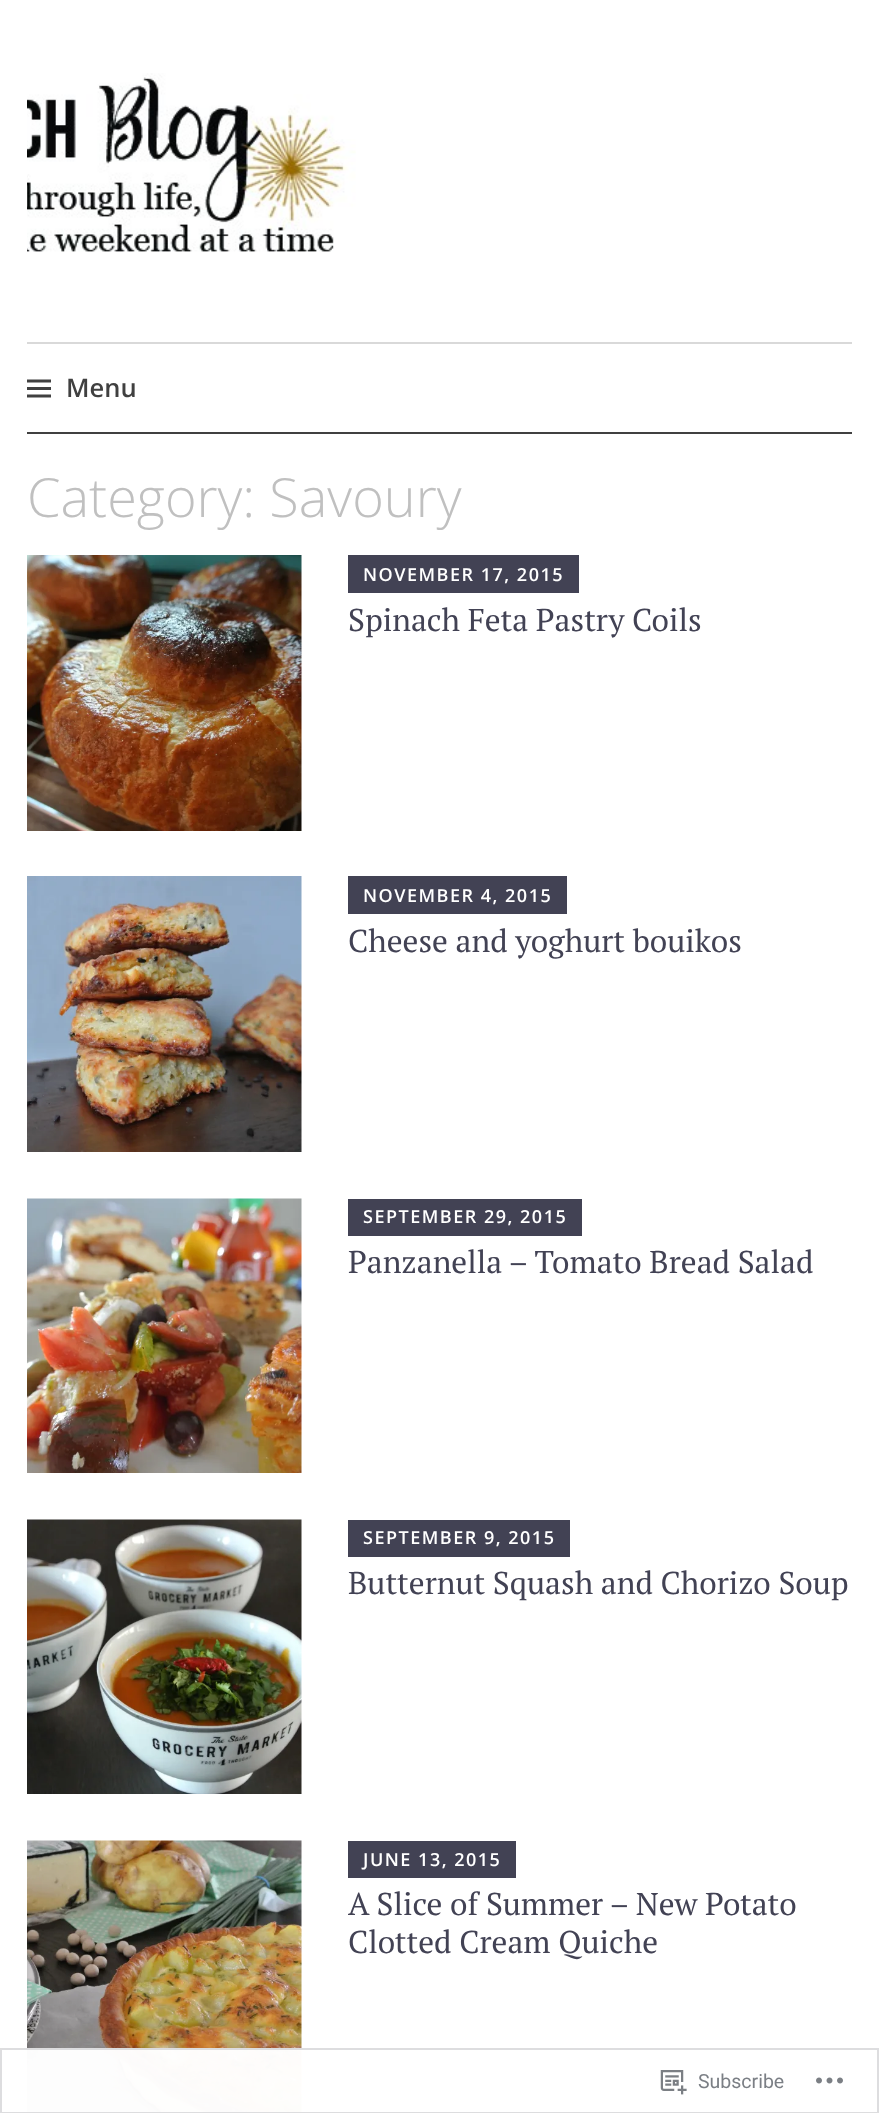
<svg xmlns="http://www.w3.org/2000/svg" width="879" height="2113">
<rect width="100%" height="100%" fill="#fff"/>
<image x="27" y="73" width="329" height="179" href="media/1.png"/>
<rect x="27" y="342" width="825" height="2" fill="#d9d9d9"/>
<rect x="27" y="432" width="825" height="2" fill="#404040"/>
<image x="27" y="379" width="24" height="19" href="media/2.png"/>
<text x="66" y="397" style="font-family:Open Sans;font-size:25.5px;font-weight:600;fill:#404040">Menu</text>
<text x="27" y="517" style="font-family:Open Sans;font-size:54px;font-weight:300;fill:#c0c0c0">Category: Savoury</text>
<image x="27" y="555" width="275" height="276" href="media/3.png"/>
<rect x="348" y="555" width="231" height="38" fill="#424254"/>
<text x="363" y="581" style="font-family:Open Sans;font-size:18px;font-weight:600;letter-spacing:1.5px;fill:#fff">NOVEMBER 17, 2015</text>
<text x="348" y="631" style="font-family:PT Serif;font-size:31.5px;fill:#424254">Spinach Feta Pastry Coils</text>
<image x="27" y="876" width="275" height="276" href="media/4.png"/>
<rect x="348" y="876" width="219" height="38" fill="#424254"/>
<text x="363" y="902" style="font-family:Open Sans;font-size:18px;font-weight:600;letter-spacing:1.5px;fill:#fff">NOVEMBER 4, 2015</text>
<text x="348" y="952" style="font-family:PT Serif;font-size:31.5px;fill:#424254">Cheese and yoghurt bouikos</text>
<image x="27" y="1198" width="275" height="275" href="media/5.png"/>
<rect x="348" y="1199" width="234" height="37" fill="#424254"/>
<text x="363" y="1223" style="font-family:Open Sans;font-size:18px;font-weight:600;letter-spacing:1.5px;fill:#fff">SEPTEMBER 29, 2015</text>
<text x="348" y="1273" style="font-family:PT Serif;font-size:31.5px;fill:#424254">Panzanella – Tomato Bread Salad</text>
<image x="27" y="1519" width="275" height="275" href="media/6.png"/>
<rect x="348" y="1520" width="222" height="37" fill="#424254"/>
<text x="363" y="1544" style="font-family:Open Sans;font-size:18px;font-weight:600;letter-spacing:1.5px;fill:#fff">SEPTEMBER 9, 2015</text>
<text x="348" y="1594" style="font-family:PT Serif;font-size:31.5px;fill:#424254">Butternut Squash and Chorizo Soup</text>
<image x="27" y="1840" width="275" height="273" href="media/7.png"/>
<rect x="348" y="1841" width="168" height="37" fill="#424254"/>
<text x="363" y="1866" style="font-family:Open Sans;font-size:18px;font-weight:600;letter-spacing:1.5px;fill:#fff">JUNE 13, 2015</text>
<text x="348" y="1915" style="font-family:PT Serif;font-size:31.5px;fill:#424254">A Slice of Summer – New Potato</text>
<text x="348" y="1953" style="font-family:PT Serif;font-size:31.5px;fill:#424254">Clotted Cream Quiche</text>
<rect x="27" y="2048" width="275" height="65" fill="#fffffffa"/>
<rect x="1" y="2049" width="877" height="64" fill="none" stroke="#dcdcdefa" stroke-width="2"/>
<image x="660" y="2070" width="27" height="25" href="media/8.png"/>
<text x="698" y="2088" style="font-family:Roboto;font-size:19.5px;fill:#7b7f85">Subscribe</text>
<image x="816" y="2077" width="27" height="7" href="media/9.png"/>
</svg>
